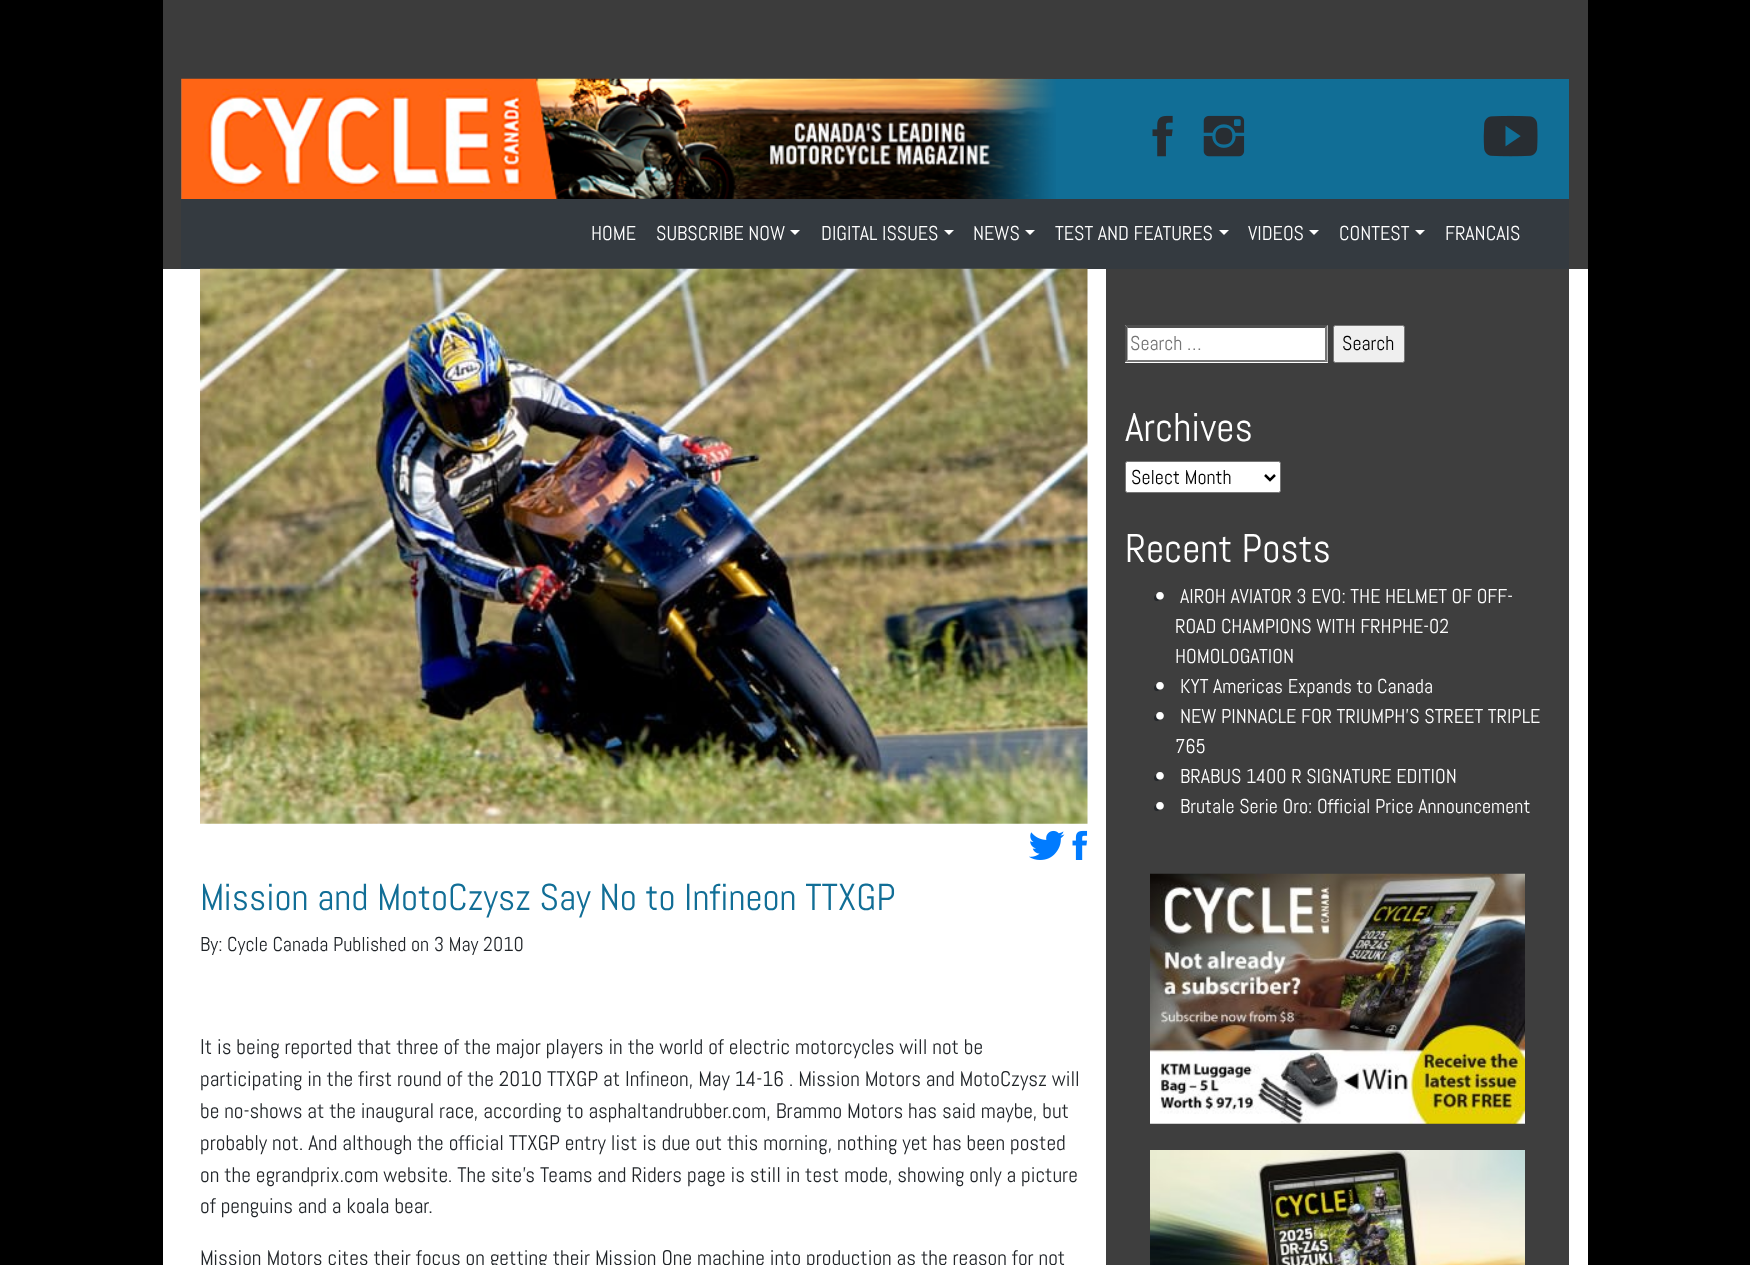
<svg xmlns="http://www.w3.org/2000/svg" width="1750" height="1265">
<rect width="100%" height="100%" fill="#000"/>
<rect x="163" width="1425" height="269" fill="#3c3c3c"/>
<rect x="181" y="79" width="1388" height="120" fill="#116e96"/>
<image x="181" y="78" width="875" height="121" href="media/1.png"/>
<image x="1152" y="115" width="21" height="42" href="media/2.png"/>
<image x="1203" y="115" width="42" height="42" href="media/3.png"/>
<image x="1483" y="115" width="55" height="42" href="media/4.png"/>
<rect x="181" y="199" width="1388" height="70" fill="#343a40"/>
<text x="591" y="240" style="font-family:Abel;font-size:20px;fill:#fff">HOME</text>
<text x="656" y="240" style="font-family:Abel;font-size:20px;fill:#fff">SUBSCRIBE NOW</text>
<path d="M790 230h10l-5 5z" fill="#fff"/>
<text x="821" y="240" style="font-family:Abel;font-size:20px;fill:#fff">DIGITAL ISSUES</text>
<path d="M944 230h10l-5 5z" fill="#fff"/>
<text x="973" y="240" style="font-family:Abel;font-size:20px;fill:#fff">NEWS</text>
<path d="M1025 230h10l-5 5z" fill="#fff"/>
<text x="1055" y="240" style="font-family:Abel;font-size:20px;fill:#fff">TEST AND FEATURES</text>
<path d="M1219 230h10l-5 5z" fill="#fff"/>
<text x="1248" y="240" style="font-family:Abel;font-size:20px;fill:#fff">VIDEOS</text>
<path d="M1309 230h10l-5 5z" fill="#fff"/>
<text x="1339" y="240" style="font-family:Abel;font-size:20px;fill:#fff">CONTEST</text>
<path d="M1415 230h10l-5 5z" fill="#fff"/>
<text x="1445" y="240" style="font-family:Abel;font-size:20px;fill:#fff">FRANCAIS</text>
<rect x="163" y="269" width="1425" height="996" fill="#fff"/>
<rect x="1106" y="269" width="463" height="996" fill="#3e3e3e"/>
<rect x="1125" y="325" width="203" height="38" fill="#fff"/>
<path d="M1125 325h203l-3 3h-197z" fill="#4f4f4f"/>
<path d="M1327.5 325v37.5l-2.5-2.5v-32.5z" fill="#767676"/>
<path d="M1328 362h-203l3-2h197z" fill="#767676"/>
<path d="M1125 362.5v-37.5l2.5 2.5v32.5z" fill="#4f4f4f"/>
<text x="1130" y="350" style="font-family:Abel;font-size:20px;fill:#757575">Search …</text>
<rect x="1333.5" y="325.5" width="71" height="37" rx="2" fill="#efefef" stroke="#767676"/>
<text x="1342" y="350" style="font-family:Abel;font-size:20px;fill:#000">Search</text>
<text x="1125" y="441" style="font-family:Abel;font-size:40px;fill:#fff">Archives</text>
<rect x="1125.5" y="461.5" width="155" height="31" rx="2" fill="#fff" stroke="#767676"/>
<path d="M1265 475l5 5l5-5" fill="none" stroke="#000" stroke-width="2.5"/>
<text x="1131" y="484" style="font-family:Abel;font-size:20px;fill:#000">Select Month</text>
<text x="1125" y="562" style="font-family:Abel;font-size:40px;fill:#fff">Recent Posts</text>
<circle cx="1157" cy="598" r="3" fill="#212529"/>
<text x="1155" y="603" style="font-family:Abel;font-size:20px;font-weight:bold;fill:#fff">•</text>
<text x="1180" y="603" style="font-family:Abel;font-size:20px;fill:#fff">AIROH AVIATOR 3 EVO: THE HELMET OF OFF-</text>
<text x="1175" y="633" style="font-family:Abel;font-size:20px;fill:#fff">ROAD CHAMPIONS WITH FRHPHE-02</text>
<text x="1175" y="663" style="font-family:Abel;font-size:20px;fill:#fff">HOMOLOGATION</text>
<circle cx="1157" cy="688" r="3" fill="#212529"/>
<text x="1155" y="693" style="font-family:Abel;font-size:20px;font-weight:bold;fill:#fff">•</text>
<text x="1180" y="693" style="font-family:Abel;font-size:20px;fill:#fff">KYT Americas Expands to Canada</text>
<circle cx="1157" cy="718" r="3" fill="#212529"/>
<text x="1155" y="723" style="font-family:Abel;font-size:20px;font-weight:bold;fill:#fff">•</text>
<text x="1180" y="723" style="font-family:Abel;font-size:20px;fill:#fff">NEW PINNACLE FOR TRIUMPH’S STREET TRIPLE</text>
<text x="1175" y="753" style="font-family:Abel;font-size:20px;fill:#fff">765</text>
<circle cx="1157" cy="778" r="3" fill="#212529"/>
<text x="1155" y="783" style="font-family:Abel;font-size:20px;font-weight:bold;fill:#fff">•</text>
<text x="1180" y="783" style="font-family:Abel;font-size:20px;fill:#fff">BRABUS 1400 R SIGNATURE EDITION</text>
<circle cx="1157" cy="808" r="3" fill="#212529"/>
<text x="1155" y="813" style="font-family:Abel;font-size:20px;font-weight:bold;fill:#fff">•</text>
<text x="1180" y="813" style="font-family:Abel;font-size:20px;fill:#fff">Brutale Serie Oro: Official Price Announcement</text>
<image x="1150" y="873" width="375" height="251" href="media/5.png"/>
<image x="1150" y="1150" width="375" height="115" href="media/6.png"/>
<image x="200" y="268" width="888" height="556" href="media/7.png"/>
<image x="1029" y="830" width="36" height="30" href="media/8.png"/>
<image x="1072" y="830" width="16" height="30" href="media/9.png"/>
<text x="200" y="910" style="font-family:Abel;font-size:37.5px;fill:#116e96">Mission and MotoCzysz Say No to Infineon TTXGP</text>
<text x="200" y="951" style="font-family:Abel;font-size:20px;fill:#212529">By: Cycle Canada Published on 3 May 2010</text>
<text x="200" y="1054" style="font-family:Abel;font-size:21.25px;fill:#212529">It is being reported that three of the major players in the world of electric motorcycles will not be</text>
<text x="200" y="1086" style="font-family:Abel;font-size:21.25px;fill:#212529">participating in the first round of the 2010 TTXGP at Infineon, May 14-16 . Mission Motors and MotoCzysz will</text>
<text x="200" y="1118" style="font-family:Abel;font-size:21.25px;fill:#212529">be no-shows at the inaugural race, according to asphaltandrubber.com, Brammo Motors has said maybe, but</text>
<text x="200" y="1150" style="font-family:Abel;font-size:21.25px;fill:#212529">probably not. And although the official TTXGP entry list is due out this morning, nothing yet has been posted</text>
<text x="200" y="1182" style="font-family:Abel;font-size:21.25px;fill:#212529">on the egrandprix.com website. The site’s Teams and Riders page is still in test mode, showing only a picture</text>
<text x="200" y="1213" style="font-family:Abel;font-size:21.25px;fill:#212529">of penguins and a koala bear.</text>
<text x="200" y="1265" style="font-family:Abel;font-size:21.25px;fill:#212529">Mission Motors cites their focus on getting their Mission One machine into production as the reason for not</text>
</svg>
